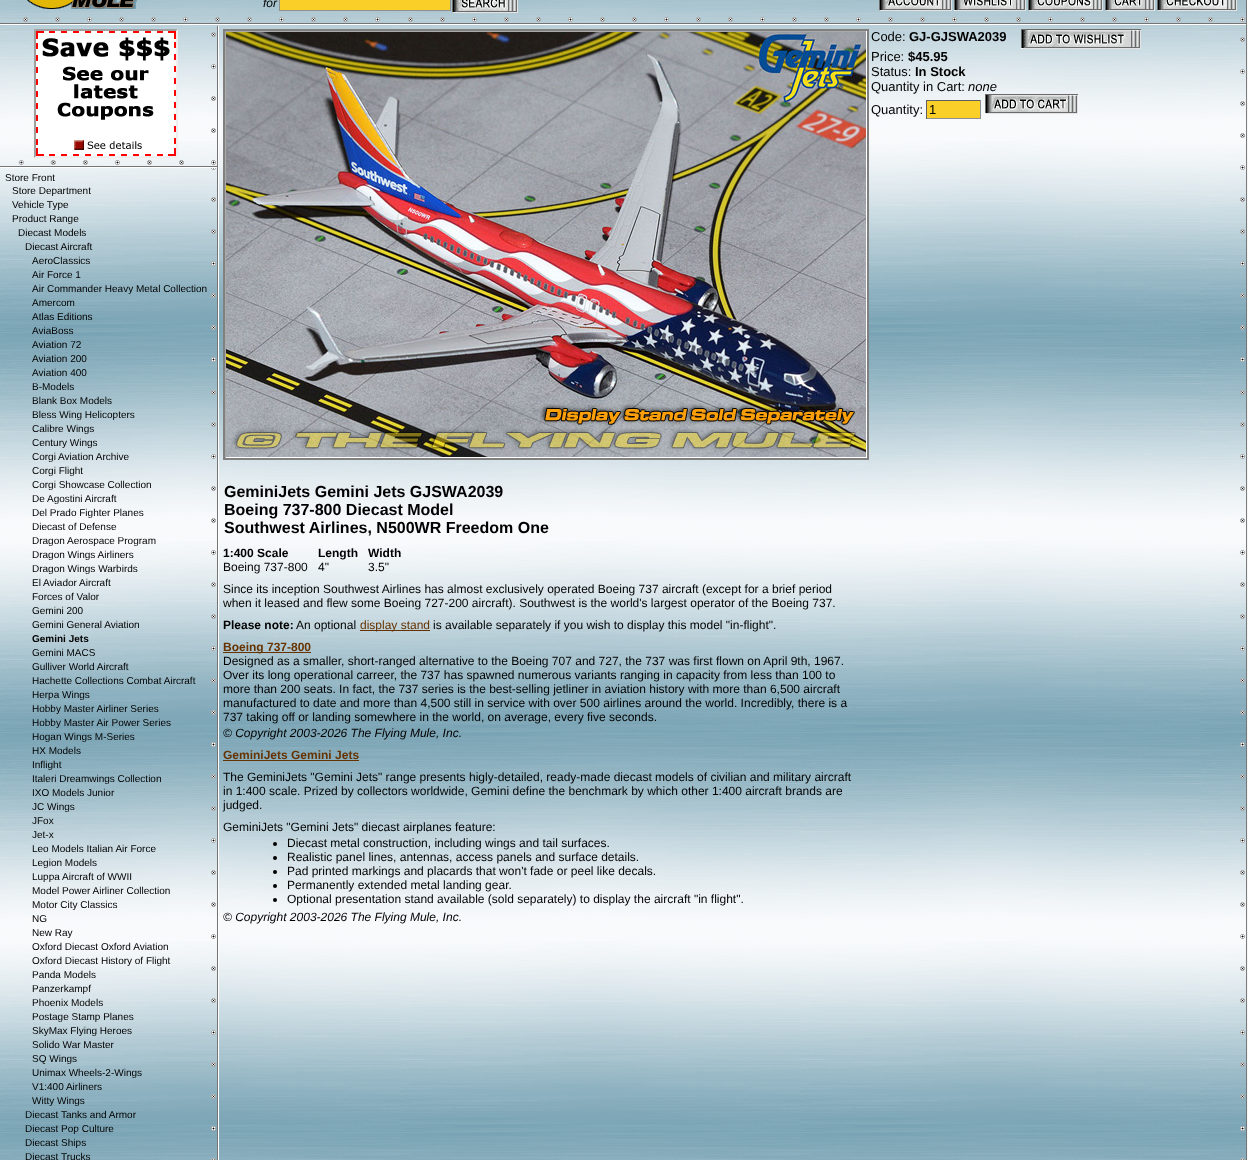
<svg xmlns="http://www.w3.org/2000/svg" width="1248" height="1160">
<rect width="100%" height="100%" fill="#fff"/>
<image x="0" y="0" width="1247" height="1160" href="media/1.png"/>
<image x="0" y="0" width="1248" height="25" href="media/2.png"/>
<image x="27" y="0" width="110" height="9" href="media/3.png"/>
<text x="263" y="7" style="font-family:Liberation Sans;font-size:12px;font-style:italic;fill:#000">for</text>
<rect x="279.5" y="-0.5" width="171" height="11" fill="#fad028" stroke="#909090"/>
<image x="452" y="0" width="66" height="13" href="media/4.png"/>
<image x="879" y="0" width="73" height="11" href="media/5.png"/>
<image x="954" y="0" width="72" height="11" href="media/6.png"/>
<image x="1028" y="0" width="75" height="11" href="media/7.png"/>
<image x="1105" y="0" width="50" height="11" href="media/8.png"/>
<image x="1157" y="0" width="80" height="11" href="media/9.png"/>
<image x="0" y="26" width="219" height="142" href="media/10.png"/>
<path d="M34 29h144l-2 2h-140z" fill="#9f9f9f"/>
<path d="M178 29v129l-2-2v-125z" fill="#eee"/>
<path d="M178 158h-144l2-2h140z" fill="#eee"/>
<path d="M34 158v-129l2 2v125z" fill="#9f9f9f"/>
<image x="36" y="31" width="140" height="125" href="media/11.png"/>
<image x="211" y="168" width="8" height="992" href="media/12.png"/>
<text x="5" y="181" style="font-family:Liberation Sans;font-size:10px;fill:#000">Store Front</text>
<text x="12" y="194" style="font-family:Liberation Sans;font-size:10px;fill:#000">Store Department</text>
<text x="12" y="208" style="font-family:Liberation Sans;font-size:10px;fill:#000">Vehicle Type</text>
<text x="12" y="222" style="font-family:Liberation Sans;font-size:10px;fill:#000">Product Range</text>
<text x="18" y="236" style="font-family:Liberation Sans;font-size:10px;fill:#000">Diecast Models</text>
<text x="25" y="250" style="font-family:Liberation Sans;font-size:10px;fill:#000">Diecast Aircraft</text>
<text x="32" y="264" style="font-family:Liberation Sans;font-size:10px;fill:#000">AeroClassics</text>
<text x="32" y="278" style="font-family:Liberation Sans;font-size:10px;fill:#000">Air Force 1</text>
<text x="32" y="292" style="font-family:Liberation Sans;font-size:10px;fill:#000">Air Commander Heavy Metal Collection</text>
<text x="32" y="306" style="font-family:Liberation Sans;font-size:10px;fill:#000">Amercom</text>
<text x="32" y="320" style="font-family:Liberation Sans;font-size:10px;fill:#000">Atlas Editions</text>
<text x="32" y="334" style="font-family:Liberation Sans;font-size:10px;fill:#000">AviaBoss</text>
<text x="32" y="348" style="font-family:Liberation Sans;font-size:10px;fill:#000">Aviation 72</text>
<text x="32" y="362" style="font-family:Liberation Sans;font-size:10px;fill:#000">Aviation 200</text>
<text x="32" y="376" style="font-family:Liberation Sans;font-size:10px;fill:#000">Aviation 400</text>
<text x="32" y="390" style="font-family:Liberation Sans;font-size:10px;fill:#000">B-Models</text>
<text x="32" y="404" style="font-family:Liberation Sans;font-size:10px;fill:#000">Blank Box Models</text>
<text x="32" y="418" style="font-family:Liberation Sans;font-size:10px;fill:#000">Bless Wing Helicopters</text>
<text x="32" y="432" style="font-family:Liberation Sans;font-size:10px;fill:#000">Calibre Wings</text>
<text x="32" y="446" style="font-family:Liberation Sans;font-size:10px;fill:#000">Century Wings</text>
<text x="32" y="460" style="font-family:Liberation Sans;font-size:10px;fill:#000">Corgi Aviation Archive</text>
<text x="32" y="474" style="font-family:Liberation Sans;font-size:10px;fill:#000">Corgi Flight</text>
<text x="32" y="488" style="font-family:Liberation Sans;font-size:10px;fill:#000">Corgi Showcase Collection</text>
<text x="32" y="502" style="font-family:Liberation Sans;font-size:10px;fill:#000">De Agostini Aircraft</text>
<text x="32" y="516" style="font-family:Liberation Sans;font-size:10px;fill:#000">Del Prado Fighter Planes</text>
<text x="32" y="530" style="font-family:Liberation Sans;font-size:10px;fill:#000">Diecast of Defense</text>
<text x="32" y="544" style="font-family:Liberation Sans;font-size:10px;fill:#000">Dragon Aerospace Program</text>
<text x="32" y="558" style="font-family:Liberation Sans;font-size:10px;fill:#000">Dragon Wings Airliners</text>
<text x="32" y="572" style="font-family:Liberation Sans;font-size:10px;fill:#000">Dragon Wings Warbirds</text>
<text x="32" y="586" style="font-family:Liberation Sans;font-size:10px;fill:#000">El Aviador Aircraft</text>
<text x="32" y="600" style="font-family:Liberation Sans;font-size:10px;fill:#000">Forces of Valor</text>
<text x="32" y="614" style="font-family:Liberation Sans;font-size:10px;fill:#000">Gemini 200</text>
<text x="32" y="628" style="font-family:Liberation Sans;font-size:10px;fill:#000">Gemini General Aviation</text>
<text x="32" y="642" style="font-family:Liberation Sans;font-size:10px;font-weight:bold;fill:#000">Gemini Jets</text>
<text x="32" y="656" style="font-family:Liberation Sans;font-size:10px;fill:#000">Gemini MACS</text>
<text x="32" y="670" style="font-family:Liberation Sans;font-size:10px;fill:#000">Gulliver World Aircraft</text>
<text x="32" y="684" style="font-family:Liberation Sans;font-size:10px;fill:#000">Hachette Collections Combat Aircraft</text>
<text x="32" y="698" style="font-family:Liberation Sans;font-size:10px;fill:#000">Herpa Wings</text>
<text x="32" y="712" style="font-family:Liberation Sans;font-size:10px;fill:#000">Hobby Master Airliner Series</text>
<text x="32" y="726" style="font-family:Liberation Sans;font-size:10px;fill:#000">Hobby Master Air Power Series</text>
<text x="32" y="740" style="font-family:Liberation Sans;font-size:10px;fill:#000">Hogan Wings M-Series</text>
<text x="32" y="754" style="font-family:Liberation Sans;font-size:10px;fill:#000">HX Models</text>
<text x="32" y="768" style="font-family:Liberation Sans;font-size:10px;fill:#000">Inflight</text>
<text x="32" y="782" style="font-family:Liberation Sans;font-size:10px;fill:#000">Italeri Dreamwings Collection</text>
<text x="32" y="796" style="font-family:Liberation Sans;font-size:10px;fill:#000">IXO Models Junior</text>
<text x="32" y="810" style="font-family:Liberation Sans;font-size:10px;fill:#000">JC Wings</text>
<text x="32" y="824" style="font-family:Liberation Sans;font-size:10px;fill:#000">JFox</text>
<text x="32" y="838" style="font-family:Liberation Sans;font-size:10px;fill:#000">Jet-x</text>
<text x="32" y="852" style="font-family:Liberation Sans;font-size:10px;fill:#000">Leo Models Italian Air Force</text>
<text x="32" y="866" style="font-family:Liberation Sans;font-size:10px;fill:#000">Legion Models</text>
<text x="32" y="880" style="font-family:Liberation Sans;font-size:10px;fill:#000">Luppa Aircraft of WWII</text>
<text x="32" y="894" style="font-family:Liberation Sans;font-size:10px;fill:#000">Model Power Airliner Collection</text>
<text x="32" y="908" style="font-family:Liberation Sans;font-size:10px;fill:#000">Motor City Classics</text>
<text x="32" y="922" style="font-family:Liberation Sans;font-size:10px;fill:#000">NG</text>
<text x="32" y="936" style="font-family:Liberation Sans;font-size:10px;fill:#000">New Ray</text>
<text x="32" y="950" style="font-family:Liberation Sans;font-size:10px;fill:#000">Oxford Diecast Oxford Aviation</text>
<text x="32" y="964" style="font-family:Liberation Sans;font-size:10px;fill:#000">Oxford Diecast History of Flight</text>
<text x="32" y="978" style="font-family:Liberation Sans;font-size:10px;fill:#000">Panda Models</text>
<text x="32" y="992" style="font-family:Liberation Sans;font-size:10px;fill:#000">Panzerkampf</text>
<text x="32" y="1006" style="font-family:Liberation Sans;font-size:10px;fill:#000">Phoenix Models</text>
<text x="32" y="1020" style="font-family:Liberation Sans;font-size:10px;fill:#000">Postage Stamp Planes</text>
<text x="32" y="1034" style="font-family:Liberation Sans;font-size:10px;fill:#000">SkyMax Flying Heroes</text>
<text x="32" y="1048" style="font-family:Liberation Sans;font-size:10px;fill:#000">Solido War Master</text>
<text x="32" y="1062" style="font-family:Liberation Sans;font-size:10px;fill:#000">SQ Wings</text>
<text x="32" y="1076" style="font-family:Liberation Sans;font-size:10px;fill:#000">Unimax Wheels-2-Wings</text>
<text x="32" y="1090" style="font-family:Liberation Sans;font-size:10px;fill:#000">V1:400 Airliners</text>
<text x="32" y="1104" style="font-family:Liberation Sans;font-size:10px;fill:#000">Witty Wings</text>
<text x="25" y="1118" style="font-family:Liberation Sans;font-size:10px;fill:#000">Diecast Tanks and Armor</text>
<text x="25" y="1132" style="font-family:Liberation Sans;font-size:10px;fill:#000">Diecast Pop Culture</text>
<text x="25" y="1146" style="font-family:Liberation Sans;font-size:10px;fill:#000">Diecast Ships</text>
<text x="25" y="1160" style="font-family:Liberation Sans;font-size:10px;fill:#000">Diecast Trucks</text>
<image x="1240" y="25" width="8" height="1135" href="media/13.png"/>
<rect x="223" y="29" width="646" height="2" fill="#808080"/>
<rect x="867" y="29" width="2" height="431" fill="#808080"/>
<rect x="223" y="458" width="646" height="2" fill="#808080"/>
<rect x="223" y="29" width="2" height="431" fill="#808080"/>
<rect x="225" y="31" width="642" height="1" fill="#aaa"/>
<rect x="866" y="31" width="1" height="427" fill="#fff"/>
<rect x="225" y="457" width="642" height="1" fill="#fff"/>
<rect x="225" y="31" width="1" height="427" fill="#aaa"/>
<image x="226" y="32" width="640" height="425" href="media/14.png"/>
<text x="871" y="41" style="font-family:Liberation Sans;font-size:13px;fill:#000">Code:</text>
<text x="909" y="41" style="font-family:Liberation Sans;font-size:13px;font-weight:bold;fill:#000">GJ-GJSWA2039</text>
<image x="1021" y="29" width="120" height="20" href="media/15.png"/>
<text x="871" y="61" style="font-family:Liberation Sans;font-size:13px;fill:#000">Price:</text>
<text x="908" y="61" style="font-family:Liberation Sans;font-size:13px;font-weight:bold;fill:#000">$45.95</text>
<text x="871" y="76" style="font-family:Liberation Sans;font-size:13px;fill:#000">Status:</text>
<text x="915" y="76" style="font-family:Liberation Sans;font-size:13px;font-weight:bold;fill:#000">In Stock</text>
<text x="871" y="91" style="font-family:Liberation Sans;font-size:13px;fill:#000">Quantity in Cart:</text>
<text x="968" y="91" style="font-family:Liberation Sans;font-size:13px;font-style:italic;fill:#000">none</text>
<text x="871" y="114" style="font-family:Liberation Sans;font-size:13px;fill:#000">Quantity:</text>
<rect x="927" y="101" width="53" height="17" fill="#fad028"/>
<rect x="926" y="100" width="55" height="1" fill="#606060"/>
<rect x="980" y="100" width="1" height="19" fill="#909090"/>
<rect x="926" y="118" width="55" height="1" fill="#909090"/>
<rect x="926" y="100" width="1" height="19" fill="#606060"/>
<text x="929" y="114" style="font-family:Liberation Sans;font-size:13px;fill:#000">1</text>
<image x="985" y="94" width="93" height="20" href="media/16.png"/>
<text x="224" y="497" style="font-family:Liberation Sans;font-size:16px;font-weight:bold;fill:#000">GeminiJets Gemini Jets GJSWA2039</text>
<text x="224" y="515" style="font-family:Liberation Sans;font-size:16px;font-weight:bold;fill:#000">Boeing 737-800 Diecast Model</text>
<text x="224" y="533" style="font-family:Liberation Sans;font-size:16px;font-weight:bold;fill:#000">Southwest Airlines, N500WR Freedom One</text>
<text x="223" y="557" style="font-family:Liberation Sans;font-size:12px;font-weight:bold;fill:#000">1:400 Scale</text>
<text x="318" y="557" style="font-family:Liberation Sans;font-size:12px;font-weight:bold;fill:#000">Length</text>
<text x="368" y="557" style="font-family:Liberation Sans;font-size:12px;font-weight:bold;fill:#000">Width</text>
<text x="223" y="571" style="font-family:Liberation Sans;font-size:12px;fill:#000">Boeing 737-800</text>
<text x="318" y="571" style="font-family:Liberation Sans;font-size:12px;fill:#000">4"</text>
<text x="368" y="571" style="font-family:Liberation Sans;font-size:12px;fill:#000">3.5"</text>
<text x="223" y="593" style="font-family:Liberation Sans;font-size:12px;fill:#000">Since its inception Southwest Airlines has almost exclusively operated Boeing 737 aircraft (except for a brief period</text>
<text x="223" y="607" style="font-family:Liberation Sans;font-size:12px;fill:#000">when it leased and flew some Boeing 727-200 aircraft). Southwest is the world's largest operator of the Boeing 737.</text>
<text x="223" y="629" style="font-family:Liberation Sans;font-size:12px;font-weight:bold;fill:#000">Please note:</text>
<text x="296" y="629" style="font-family:Liberation Sans;font-size:12px;fill:#000">An optional</text>
<rect x="360" y="630" width="70" height="1" fill="#630"/>
<text x="360" y="629" style="font-family:Liberation Sans;font-size:12px;fill:#630">display stand</text>
<text x="433" y="629" style="font-family:Liberation Sans;font-size:12px;fill:#000">is available separately if you wish to display this model "in-flight".</text>
<rect x="223" y="652" width="88" height="1" fill="#630"/>
<text x="223" y="651" style="font-family:Liberation Sans;font-size:12px;font-weight:bold;fill:#630">Boeing 737-800</text>
<text x="223" y="665" style="font-family:Liberation Sans;font-size:12px;fill:#000">Designed as a smaller, short-ranged alternative to the Boeing 707 and 727, the 737 was first flown on April 9th, 1967.</text>
<text x="223" y="679" style="font-family:Liberation Sans;font-size:12px;fill:#000">Over its long operational carreer, the 737 has spawned numerous variants ranging in capacity from less than 100 to</text>
<text x="223" y="693" style="font-family:Liberation Sans;font-size:12px;fill:#000">more than 200 seats. In fact, the 737 series is the best-selling jetliner in aviation history with more than 6,500 aircraft</text>
<text x="223" y="707" style="font-family:Liberation Sans;font-size:12px;fill:#000">manufactured to date and more than 4,500 still in service with over 500 airlines around the world. Incredibly, there is a</text>
<text x="223" y="721" style="font-family:Liberation Sans;font-size:12px;fill:#000">737 taking off or landing somewhere in the world, on average, every five seconds.</text>
<text x="223" y="737" style="font-family:Liberation Sans;font-size:12px;font-style:italic;fill:#000">© Copyright 2003-2026 The Flying Mule, Inc.</text>
<text x="223" y="759" style="font-family:Liberation Sans;font-size:12px;font-weight:bold;fill:#630">GeminiJets Gemini Jets</text>
<rect x="223" y="760" width="136" height="1" fill="#630"/>
<text x="223" y="781" style="font-family:Liberation Sans;font-size:12px;fill:#000">The GeminiJets "Gemini Jets" range presents higly-detailed, ready-made diecast models of civilian and military aircraft</text>
<text x="223" y="795" style="font-family:Liberation Sans;font-size:12px;fill:#000">in 1:400 scale. Prized by collectors worldwide, Gemini define the benchmark by which other 1:400 aircraft brands are</text>
<text x="223" y="809" style="font-family:Liberation Sans;font-size:12px;fill:#000">judged.</text>
<text x="223" y="831" style="font-family:Liberation Sans;font-size:12px;fill:#000">GeminiJets "Gemini Jets" diecast airplanes feature:</text>
<circle cx="275" cy="844" r="2" fill="#000"/>
<text x="287" y="847" style="font-family:Liberation Sans;font-size:12px;fill:#000">Diecast metal construction, including wings and tail surfaces.</text>
<circle cx="275" cy="858" r="2" fill="#000"/>
<text x="287" y="861" style="font-family:Liberation Sans;font-size:12px;fill:#000">Realistic panel lines, antennas, access panels and surface details.</text>
<circle cx="275" cy="872" r="2" fill="#000"/>
<text x="287" y="875" style="font-family:Liberation Sans;font-size:12px;fill:#000">Pad printed markings and placards that won't fade or peel like decals.</text>
<circle cx="275" cy="886" r="2" fill="#000"/>
<text x="287" y="889" style="font-family:Liberation Sans;font-size:12px;fill:#000">Permanently extended metal landing gear.</text>
<circle cx="275" cy="900" r="2" fill="#000"/>
<text x="287" y="903" style="font-family:Liberation Sans;font-size:12px;fill:#000">Optional presentation stand available (sold separately) to display the aircraft "in flight".</text>
<text x="223" y="921" style="font-family:Liberation Sans;font-size:12px;font-style:italic;fill:#000">© Copyright 2003-2026 The Flying Mule, Inc.</text>
</svg>
